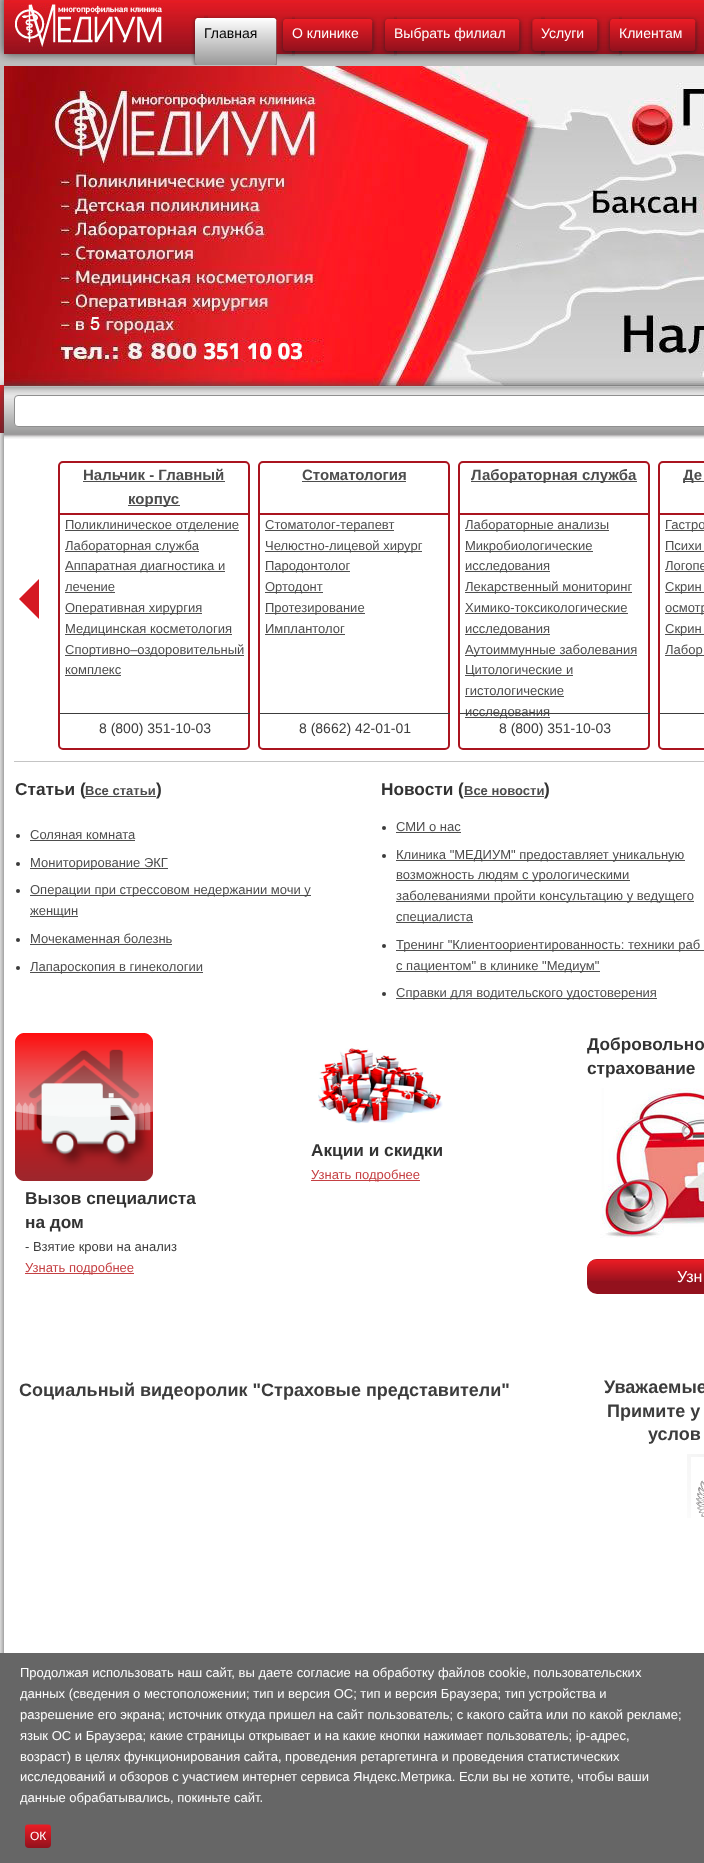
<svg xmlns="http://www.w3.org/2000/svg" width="704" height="1863">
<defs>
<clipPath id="clip1"><path d="M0 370h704v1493h-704zm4 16h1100v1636h-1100z" clip-rule="evenodd"/></clipPath>
</defs>
<rect width="100%" height="100%" fill="#fff"/>
<image x="0" y="0" width="704" height="433" href="media/1.png"/>
<image x="4" y="66" width="700" height="320" href="media/11.png"/>
<rect x="4" y="-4" width="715" height="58" fill="#444" filter="blur(5px)"/>
<image x="4" y="0" width="700" height="54" href="media/2.png"/>
<image x="191" y="15" width="17" height="50" href="media/3.png"/>
<image x="204" y="15" width="73" height="50" href="media/4.png"/>
<text x="204" y="38" style="font-family:Liberation Sans;font-size:14px;fill:#000">Главная</text>
<image x="279" y="16" width="16" height="40" href="media/5.png"/>
<image x="292" y="16" width="85" height="40" href="media/6.png"/>
<text x="292" y="38" style="font-family:Liberation Sans;font-size:14px;fill:#fff">О клинике</text>
<image x="381" y="16" width="16" height="40" href="media/5.png"/>
<image x="394" y="16" width="130" height="40" href="media/7.png"/>
<text x="394" y="38" style="font-family:Liberation Sans;font-size:14px;fill:#fff">Выбрать филиал</text>
<image x="528" y="16" width="17" height="40" href="media/8.png"/>
<image x="541" y="16" width="61" height="40" href="media/9.png"/>
<text x="541" y="38" style="font-family:Liberation Sans;font-size:14px;fill:#fff">Услуги</text>
<image x="606" y="16" width="16" height="40" href="media/5.png"/>
<image x="619" y="16" width="81" height="40" href="media/10.png"/>
<text x="619" y="38" style="font-family:Liberation Sans;font-size:14px;fill:#fff">Клиентам</text>
<g clip-path="url(#clip1)">
<rect x="4" y="386" width="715" height="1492" fill="#444" filter="blur(5px)"/>
</g>
<image x="4" y="386" width="700" height="53" href="media/12.png"/>
<rect x="14.5" y="395.5" width="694" height="31" rx="3.5" fill="#fff" stroke="#8f8f8f"/>
<rect x="14" y="761" width="690" height="1" fill="#c4c4c4"/>
<path d="M39 579v40l-20-20z" fill="#d51922"/>
<rect x="59" y="462" width="190" height="287" rx="4" fill="none" stroke="#aa141f" stroke-width="2"/>
<rect x="60" y="513" width="188" height="2" fill="#aa141f"/>
<text x="83" y="480" style="font-family:Liberation Sans;font-size:15px;font-weight:bold;fill:#4d4d4d">Нальчик - Главный</text>
<rect x="83" y="481" width="142" height="1" fill="#4d4d4d"/>
<rect x="128" y="505" width="52" height="1" fill="#4d4d4d"/>
<text x="128" y="504" style="font-family:Liberation Sans;font-size:15px;font-weight:bold;fill:#4d4d4d">корпус</text>
<rect x="65" y="530" width="174" height="1" fill="#4d4d4d"/>
<text x="65" y="529" style="font-family:Liberation Sans;font-size:13px;fill:#4d4d4d">Поликлиническое отделение</text>
<rect x="65" y="551" width="134" height="1" fill="#4d4d4d"/>
<text x="65" y="550" style="font-family:Liberation Sans;font-size:13px;fill:#4d4d4d">Лабораторная служба</text>
<rect x="65" y="571" width="160" height="1" fill="#4d4d4d"/>
<text x="65" y="570" style="font-family:Liberation Sans;font-size:13px;fill:#4d4d4d">Аппаратная диагностика и</text>
<text x="65" y="591" style="font-family:Liberation Sans;font-size:13px;fill:#4d4d4d">лечение</text>
<rect x="65" y="592" width="50" height="1" fill="#4d4d4d"/>
<rect x="65" y="613" width="137" height="1" fill="#4d4d4d"/>
<text x="65" y="612" style="font-family:Liberation Sans;font-size:13px;fill:#4d4d4d">Оперативная хирургия</text>
<rect x="65" y="634" width="167" height="1" fill="#4d4d4d"/>
<text x="65" y="633" style="font-family:Liberation Sans;font-size:13px;fill:#4d4d4d">Медицинская косметология</text>
<rect x="65" y="655" width="179" height="1" fill="#4d4d4d"/>
<text x="65" y="654" style="font-family:Liberation Sans;font-size:13px;fill:#4d4d4d">Спортивно–оздоровительный</text>
<text x="65" y="674" style="font-family:Liberation Sans;font-size:13px;fill:#4d4d4d">комплекс</text>
<rect x="65" y="675" width="56" height="1" fill="#4d4d4d"/>
<rect x="60" y="713" width="190" height="1" fill="#3c3c3c"/>
<text x="99" y="733" style="font-family:Liberation Sans;font-size:14px;fill:#3c3c3c">8 (800) 351-10-03</text>
<rect x="259" y="462" width="190" height="287" rx="4" fill="none" stroke="#aa141f" stroke-width="2"/>
<rect x="260" y="513" width="188" height="2" fill="#aa141f"/>
<text x="302" y="480" style="font-family:Liberation Sans;font-size:15px;font-weight:bold;fill:#4d4d4d">Стоматология</text>
<rect x="302" y="481" width="104" height="1" fill="#4d4d4d"/>
<rect x="265" y="530" width="129" height="1" fill="#4d4d4d"/>
<text x="265" y="529" style="font-family:Liberation Sans;font-size:13px;fill:#4d4d4d">Стоматолог-терапевт</text>
<rect x="265" y="551" width="157" height="1" fill="#4d4d4d"/>
<text x="265" y="550" style="font-family:Liberation Sans;font-size:13px;fill:#4d4d4d">Челюстно-лицевой хирург</text>
<rect x="265" y="571" width="85" height="1" fill="#4d4d4d"/>
<text x="265" y="570" style="font-family:Liberation Sans;font-size:13px;fill:#4d4d4d">Пародонтолог</text>
<rect x="265" y="592" width="58" height="1" fill="#4d4d4d"/>
<text x="265" y="591" style="font-family:Liberation Sans;font-size:13px;fill:#4d4d4d">Ортодонт</text>
<rect x="265" y="613" width="100" height="1" fill="#4d4d4d"/>
<text x="265" y="612" style="font-family:Liberation Sans;font-size:13px;fill:#4d4d4d">Протезирование</text>
<text x="265" y="633" style="font-family:Liberation Sans;font-size:13px;fill:#4d4d4d">Имплантолог</text>
<rect x="265" y="634" width="80" height="1" fill="#4d4d4d"/>
<rect x="260" y="713" width="190" height="1" fill="#3c3c3c"/>
<text x="299" y="733" style="font-family:Liberation Sans;font-size:14px;fill:#3c3c3c">8 (8662) 42-01-01</text>
<rect x="459" y="462" width="190" height="287" rx="4" fill="none" stroke="#aa141f" stroke-width="2"/>
<rect x="460" y="513" width="188" height="2" fill="#aa141f"/>
<rect x="471" y="481" width="166" height="1" fill="#4d4d4d"/>
<text x="471" y="480" style="font-family:Liberation Sans;font-size:15px;font-weight:bold;fill:#4d4d4d">Лабораторная служба</text>
<rect x="465" y="530" width="144" height="1" fill="#4d4d4d"/>
<text x="465" y="529" style="font-family:Liberation Sans;font-size:13px;fill:#4d4d4d">Лабораторные анализы</text>
<rect x="465" y="551" width="128" height="1" fill="#4d4d4d"/>
<text x="465" y="550" style="font-family:Liberation Sans;font-size:13px;fill:#4d4d4d">Микробиологические</text>
<rect x="465" y="571" width="85" height="1" fill="#4d4d4d"/>
<text x="465" y="570" style="font-family:Liberation Sans;font-size:13px;fill:#4d4d4d">исследования</text>
<rect x="465" y="592" width="167" height="1" fill="#4d4d4d"/>
<text x="465" y="591" style="font-family:Liberation Sans;font-size:13px;fill:#4d4d4d">Лекарственный мониторинг</text>
<text x="465" y="612" style="font-family:Liberation Sans;font-size:13px;fill:#4d4d4d">Химико-токсикологические</text>
<rect x="465" y="613" width="163" height="1" fill="#4d4d4d"/>
<rect x="465" y="634" width="85" height="1" fill="#4d4d4d"/>
<text x="465" y="633" style="font-family:Liberation Sans;font-size:13px;fill:#4d4d4d">исследования</text>
<rect x="465" y="655" width="172" height="1" fill="#4d4d4d"/>
<text x="465" y="654" style="font-family:Liberation Sans;font-size:13px;fill:#4d4d4d">Аутоиммунные заболевания</text>
<rect x="465" y="675" width="108" height="1" fill="#4d4d4d"/>
<text x="465" y="674" style="font-family:Liberation Sans;font-size:13px;fill:#4d4d4d">Цитологические и</text>
<text x="465" y="695" style="font-family:Liberation Sans;font-size:13px;fill:#4d4d4d">гистологические</text>
<rect x="465" y="696" width="99" height="1" fill="#4d4d4d"/>
<rect x="465" y="717" width="85" height="1" fill="#4d4d4d"/>
<text x="465" y="716" style="font-family:Liberation Sans;font-size:13px;fill:#4d4d4d">исследования</text>
<rect x="460" y="713" width="190" height="1" fill="#3c3c3c"/>
<text x="499" y="733" style="font-family:Liberation Sans;font-size:14px;fill:#3c3c3c">8 (800) 351-10-03</text>
<rect x="659" y="462" width="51" height="287" rx="4" fill="none" stroke="#aa141f" stroke-width="2"/>
<rect x="660" y="513" width="44" height="2" fill="#aa141f"/>
<rect x="683" y="481" width="21" height="1" fill="#4d4d4d"/>
<text x="683" y="480" style="font-family:Liberation Sans;font-size:15px;font-weight:bold;fill:#4d4d4d">Де</text>
<rect x="665" y="530" width="39" height="1" fill="#4d4d4d"/>
<text x="665" y="529" style="font-family:Liberation Sans;font-size:13px;fill:#4d4d4d">Гастро</text>
<text x="665" y="550" style="font-family:Liberation Sans;font-size:13px;fill:#4d4d4d">Психи</text>
<rect x="665" y="551" width="39" height="1" fill="#4d4d4d"/>
<text x="665" y="570" style="font-family:Liberation Sans;font-size:13px;fill:#4d4d4d">Логопе</text>
<rect x="665" y="571" width="39" height="1" fill="#4d4d4d"/>
<rect x="665" y="592" width="39" height="1" fill="#4d4d4d"/>
<text x="665" y="591" style="font-family:Liberation Sans;font-size:13px;fill:#4d4d4d">Скрин</text>
<rect x="665" y="613" width="39" height="1" fill="#4d4d4d"/>
<text x="665" y="612" style="font-family:Liberation Sans;font-size:13px;fill:#4d4d4d">осмотр</text>
<rect x="665" y="634" width="39" height="1" fill="#4d4d4d"/>
<text x="665" y="633" style="font-family:Liberation Sans;font-size:13px;fill:#4d4d4d">Скрин</text>
<rect x="665" y="655" width="39" height="1" fill="#4d4d4d"/>
<text x="665" y="654" style="font-family:Liberation Sans;font-size:13px;fill:#4d4d4d">Лабор</text>
<rect x="660" y="713" width="44" height="1" fill="#3c3c3c"/>
<text x="15" y="795" style="font-family:Liberation Sans;font-size:17.25px;font-weight:bold;fill:#333">Статьи (</text>
<text x="85" y="795" style="font-family:Liberation Sans;font-size:13px;font-weight:bold;fill:#4d4d4d">Все статьи</text>
<rect x="85" y="796" width="71" height="1" fill="#4d4d4d"/>
<text x="156" y="795" style="font-family:Liberation Sans;font-size:17.25px;font-weight:bold;fill:#333">)</text>
<circle cx="18" cy="836" r="2" fill="#3c3c3c"/>
<text x="30" y="839" style="font-family:Liberation Sans;font-size:13px;fill:#4d4d4d">Соляная комната</text>
<rect x="30" y="840" width="105" height="1" fill="#4d4d4d"/>
<circle cx="18" cy="864" r="2" fill="#3c3c3c"/>
<rect x="30" y="868" width="138" height="1" fill="#4d4d4d"/>
<text x="30" y="867" style="font-family:Liberation Sans;font-size:13px;fill:#4d4d4d">Мониторирование ЭКГ</text>
<circle cx="18" cy="891" r="2" fill="#3c3c3c"/>
<rect x="30" y="895" width="281" height="1" fill="#4d4d4d"/>
<text x="30" y="894" style="font-family:Liberation Sans;font-size:13px;fill:#4d4d4d">Операции при стрессовом недержании мочи у</text>
<rect x="30" y="916" width="48" height="1" fill="#4d4d4d"/>
<text x="30" y="915" style="font-family:Liberation Sans;font-size:13px;fill:#4d4d4d">женщин</text>
<circle cx="18" cy="940" r="2" fill="#3c3c3c"/>
<text x="30" y="943" style="font-family:Liberation Sans;font-size:13px;fill:#4d4d4d">Мочекаменная болезнь</text>
<rect x="30" y="944" width="142" height="1" fill="#4d4d4d"/>
<circle cx="18" cy="968" r="2" fill="#3c3c3c"/>
<rect x="30" y="972" width="173" height="1" fill="#4d4d4d"/>
<text x="30" y="971" style="font-family:Liberation Sans;font-size:13px;fill:#4d4d4d">Лапароскопия в гинекологии</text>
<text x="381" y="795" style="font-family:Liberation Sans;font-size:17.25px;font-weight:bold;fill:#333">Новости (</text>
<text x="464" y="795" style="font-family:Liberation Sans;font-size:13px;font-weight:bold;fill:#4d4d4d">Все новости</text>
<rect x="464" y="796" width="80" height="1" fill="#4d4d4d"/>
<text x="544" y="795" style="font-family:Liberation Sans;font-size:17.25px;font-weight:bold;fill:#333">)</text>
<circle cx="384" cy="828" r="2" fill="#3c3c3c"/>
<text x="396" y="831" style="font-family:Liberation Sans;font-size:13px;fill:#4d4d4d">СМИ о нас</text>
<rect x="396" y="832" width="65" height="1" fill="#4d4d4d"/>
<circle cx="384" cy="856" r="2" fill="#3c3c3c"/>
<rect x="396" y="860" width="289" height="1" fill="#4d4d4d"/>
<text x="396" y="859" style="font-family:Liberation Sans;font-size:13px;fill:#4d4d4d">Клиника "МЕДИУМ" предоставляет уникальную</text>
<rect x="396" y="880" width="234" height="1" fill="#4d4d4d"/>
<text x="396" y="879" style="font-family:Liberation Sans;font-size:13px;fill:#4d4d4d">возможность людям с урологическими</text>
<rect x="396" y="901" width="298" height="1" fill="#4d4d4d"/>
<text x="396" y="900" style="font-family:Liberation Sans;font-size:13px;fill:#4d4d4d">заболеваниями пройти консультацию у ведущего</text>
<rect x="396" y="922" width="77" height="1" fill="#4d4d4d"/>
<text x="396" y="921" style="font-family:Liberation Sans;font-size:13px;fill:#4d4d4d">специалиста</text>
<circle cx="384" cy="946" r="2" fill="#3c3c3c"/>
<rect x="396" y="950" width="308" height="1" fill="#4d4d4d"/>
<text x="396" y="949" style="font-family:Liberation Sans;font-size:13px;fill:#4d4d4d">Тренинг "Клиентоориентированность: техники раб</text>
<rect x="396" y="971" width="204" height="1" fill="#4d4d4d"/>
<text x="396" y="970" style="font-family:Liberation Sans;font-size:13px;fill:#4d4d4d">с пациентом" в клинике "Медиум"</text>
<circle cx="384" cy="994" r="2" fill="#3c3c3c"/>
<rect x="396" y="998" width="261" height="1" fill="#4d4d4d"/>
<text x="396" y="997" style="font-family:Liberation Sans;font-size:13px;fill:#4d4d4d">Справки для водительского удостоверения</text>
<image x="318" y="1048" width="125" height="76" href="media/13.png"/>
<text x="311" y="1156" style="font-family:Liberation Sans;font-size:17.25px;font-weight:bold;fill:#333">Акции и скидки</text>
<rect x="311" y="1180" width="109" height="1" fill="#c54043"/>
<text x="311" y="1179" style="font-family:Liberation Sans;font-size:13px;fill:#c54043">Узнать подробнее</text>
<text x="587" y="1050" style="font-family:Liberation Sans;font-size:17.25px;font-weight:bold;fill:#333">Добровольно</text>
<text x="587" y="1074" style="font-family:Liberation Sans;font-size:17.25px;font-weight:bold;fill:#333">страхование</text>
<image x="600" y="1088" width="104" height="150" href="media/14.png"/>
<rect x="587" y="1259" width="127" height="35" rx="10" fill="#93111d"/>
<image x="587" y="1259" width="117" height="22" href="media/15.png"/>
<text x="677" y="1282" style="font-family:Liberation Sans;font-size:16px;fill:#fff">Узн</text>
<image x="15" y="1033" width="138" height="148" href="media/16.png"/>
<text x="25" y="1204" style="font-family:Liberation Sans;font-size:17.25px;font-weight:bold;fill:#333">Вызов специалиста</text>
<text x="25" y="1228" style="font-family:Liberation Sans;font-size:17.25px;font-weight:bold;fill:#333">на дом</text>
<text x="25" y="1251" style="font-family:Liberation Sans;font-size:13px;fill:#3c3c3c">- Взятие крови на анализ</text>
<rect x="25" y="1273" width="109" height="1" fill="#c54043"/>
<text x="25" y="1272" style="font-family:Liberation Sans;font-size:13px;fill:#c54043">Узнать подробнее</text>
<text x="19" y="1396" style="font-family:Liberation Sans;font-size:18px;font-weight:bold;fill:#3c3c3c">Социальный видеоролик "Страховые представители"</text>
<text x="604" y="1393" style="font-family:Liberation Sans;font-size:18px;font-weight:bold;fill:#3c3c3c">Уважаемые</text>
<text x="607" y="1417" style="font-family:Liberation Sans;font-size:18px;font-weight:bold;fill:#3c3c3c">Примите у</text>
<text x="648" y="1440" style="font-family:Liberation Sans;font-size:18px;font-weight:bold;fill:#3c3c3c">услов</text>
<image x="687" y="1454" width="17" height="64" href="media/17.png"/>
<rect y="1653" width="704" height="210" fill="#666"/>
<text x="20" y="1677" style="font-family:Liberation Sans;font-size:13px;fill:#fff">Продолжая использовать наш сайт, вы даете согласие на обработку файлов cookie, пользовательских</text>
<text x="20" y="1698" style="font-family:Liberation Sans;font-size:13px;fill:#fff">данных (сведения о местоположении; тип и версия ОС; тип и версия Браузера; тип устройства и</text>
<text x="20" y="1719" style="font-family:Liberation Sans;font-size:13px;fill:#fff">разрешение его экрана; источник откуда пришел на сайт пользователь; с какого сайта или по какой рекламе;</text>
<text x="20" y="1740" style="font-family:Liberation Sans;font-size:13px;fill:#fff">язык ОС и Браузера; какие страницы открывает и на какие кнопки нажимает пользователь; ip-адрес,</text>
<text x="20" y="1761" style="font-family:Liberation Sans;font-size:13px;fill:#fff">возраст) в целях функционирования сайта, проведения ретаргетинга и проведения статистических</text>
<text x="20" y="1781" style="font-family:Liberation Sans;font-size:13px;fill:#fff">исследований и обзоров с участием интернет сервиса Яндекс.Метрика. Если вы не хотите, чтобы ваши</text>
<text x="20" y="1802" style="font-family:Liberation Sans;font-size:13px;fill:#fff">данные обрабатывались, покиньте сайт.</text>
<image x="25" y="1824" width="26" height="24" href="media/18.png"/>
<text x="30" y="1840" style="font-family:Liberation Sans;font-size:12px;fill:#fff">ОК</text>
</svg>
